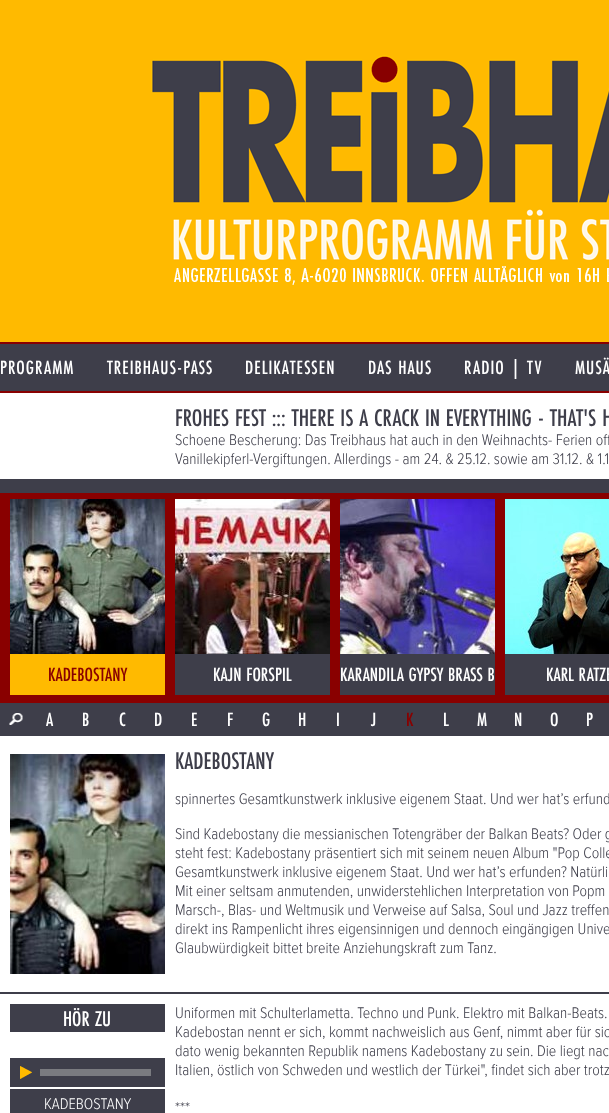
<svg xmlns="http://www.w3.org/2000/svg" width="609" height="1113">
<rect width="100%" height="100%" fill="#3e3e4a"/>
<rect width="609" height="342" fill="#ffba00"/>
<image x="151" y="55" width="458" height="230" href="media/1.png"/>
<rect y="342" width="609" height="2" fill="#890000"/>
<rect y="391" width="609" height="2" fill="#890000"/>
<text x="0" y="374" style="font-family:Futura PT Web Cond;font-size:20px;font-weight:500;letter-spacing:1px;fill:#fff">PROGRAMM</text>
<text x="107" y="374" style="font-family:Futura PT Web Cond;font-size:20px;font-weight:500;letter-spacing:1px;fill:#fff">TREIBHAUS-PASS</text>
<text x="245" y="374" style="font-family:Futura PT Web Cond;font-size:20px;font-weight:500;letter-spacing:1px;fill:#fff">DELIKATESSEN</text>
<text x="368" y="374" style="font-family:Futura PT Web Cond;font-size:20px;font-weight:500;letter-spacing:1px;fill:#fff">DAS HAUS</text>
<text x="464" y="374" style="font-family:Futura PT Web Cond;font-size:20px;font-weight:500;letter-spacing:1px;fill:#fff">RADIO | TV</text>
<text x="575" y="374" style="font-family:Futura PT Web Cond;font-size:20px;font-weight:500;letter-spacing:1px;fill:#fff">MUSÄ</text>
<rect y="393" width="609" height="86" fill="#fff"/>
<text x="175" y="426" style="font-family:Futura PT Web Cond;font-size:25px;font-weight:500;fill:#3e3e4a">FROHES FEST ::: THERE IS A CRACK IN EVERYTHING - THAT'S H</text>
<text x="175" y="445" style="font-family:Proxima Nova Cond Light;font-size:16px;font-weight:300;fill:#3e3e4a">Schoene Bescherung: Das Treibhaus hat auch in den Weihnachts- Ferien off</text>
<text x="175" y="464" style="font-family:Proxima Nova Cond Light;font-size:16px;font-weight:300;fill:#3e3e4a">Vanillekipferl-Vergiftungen. Allerdings - am 24. &amp; 25.12. sowie am 31.12. &amp; 1.1</text>
<rect y="493" width="609" height="210" fill="#890000"/>
<image x="10" y="499" width="155" height="155" href="media/2.png"/>
<rect x="10" y="654" width="155" height="41" fill="#ffba00"/>
<text x="48" y="681" style="font-family:Futura PT Web Cond;font-size:20px;font-weight:500;fill:#890000">KADEBOSTANY</text>
<image x="175" y="499" width="155" height="155" href="media/3.png"/>
<rect x="175" y="654" width="155" height="41" fill="#3e3e4a"/>
<text x="213" y="681" style="font-family:Futura PT Web Cond;font-size:20px;font-weight:500;fill:#fff">KAJN FORSPIL</text>
<image x="340" y="499" width="155" height="155" href="media/4.png"/>
<rect x="340" y="654" width="155" height="41" fill="#3e3e4a"/>
<text x="340" y="681" style="font-family:Futura PT Web Cond;font-size:20px;font-weight:500;fill:#fff">KARANDILA GYPSY BRASS B</text>
<image x="505" y="499" width="104" height="155" href="media/5.png"/>
<rect x="505" y="654" width="104" height="41" fill="#3e3e4a"/>
<text x="546" y="681" style="font-family:Futura PT Web Cond;font-size:20px;font-weight:500;fill:#fff">KARL RATZE</text>
<image x="9" y="713" width="14" height="12" href="media/6.png"/>
<text x="46" y="726" style="font-family:Futura PT Web Cond;font-size:20px;font-weight:500;fill:#fff">A</text>
<text x="82" y="726" style="font-family:Futura PT Web Cond;font-size:20px;font-weight:500;fill:#fff">B</text>
<text x="119" y="726" style="font-family:Futura PT Web Cond;font-size:20px;font-weight:500;fill:#fff">C</text>
<text x="154" y="726" style="font-family:Futura PT Web Cond;font-size:20px;font-weight:500;fill:#fff">D</text>
<text x="191" y="726" style="font-family:Futura PT Web Cond;font-size:20px;font-weight:500;fill:#fff">E</text>
<text x="227" y="726" style="font-family:Futura PT Web Cond;font-size:20px;font-weight:500;fill:#fff">F</text>
<text x="262" y="726" style="font-family:Futura PT Web Cond;font-size:20px;font-weight:500;fill:#fff">G</text>
<text x="298" y="726" style="font-family:Futura PT Web Cond;font-size:20px;font-weight:500;fill:#fff">H</text>
<text x="336" y="726" style="font-family:Futura PT Web Cond;font-size:20px;font-weight:500;fill:#fff">I</text>
<text x="371" y="726" style="font-family:Futura PT Web Cond;font-size:20px;font-weight:500;fill:#fff">J</text>
<text x="406" y="726" style="font-family:Futura PT Web Cond;font-size:20px;font-weight:500;fill:#890000">K</text>
<text x="443" y="726" style="font-family:Futura PT Web Cond;font-size:20px;font-weight:500;fill:#fff">L</text>
<text x="477" y="726" style="font-family:Futura PT Web Cond;font-size:20px;font-weight:500;fill:#fff">M</text>
<text x="514" y="726" style="font-family:Futura PT Web Cond;font-size:20px;font-weight:500;fill:#fff">N</text>
<text x="550" y="726" style="font-family:Futura PT Web Cond;font-size:20px;font-weight:500;fill:#fff">O</text>
<text x="586" y="726" style="font-family:Futura PT Web Cond;font-size:20px;font-weight:500;fill:#fff">P</text>
<rect y="736" width="609" height="256" fill="#fff"/>
<image x="10" y="754" width="155" height="220" href="media/7.png"/>
<text x="175" y="769" style="font-family:Futura PT Web Cond;font-size:25px;font-weight:500;fill:#3e3e4a">KADEBOSTANY</text>
<text x="175" y="804" style="font-family:Proxima Nova Cond Light;font-size:16px;font-weight:300;fill:#3e3e4a">spinnertes Gesamtkunstwerk inklusive eigenem Staat. Und wer hat’s erfund</text>
<text x="175" y="839" style="font-family:Proxima Nova Cond Light;font-size:16px;font-weight:300;fill:#3e3e4a">Sind Kadebostany die messianischen Totengräber der Balkan Beats? Oder g</text>
<text x="175" y="858" style="font-family:Proxima Nova Cond Light;font-size:16px;font-weight:300;fill:#3e3e4a">steht fest: Kadebostany präsentiert sich mit seinem neuen Album "Pop Colle</text>
<text x="175" y="877" style="font-family:Proxima Nova Cond Light;font-size:16px;font-weight:300;fill:#3e3e4a">Gesamtkunstwerk inklusive eigenem Staat. Und wer hat’s erfunden? Natürli</text>
<text x="175" y="896" style="font-family:Proxima Nova Cond Light;font-size:16px;font-weight:300;fill:#3e3e4a">Mit einer seltsam anmutenden, unwiderstehlichen Interpretation von Popm</text>
<text x="175" y="915" style="font-family:Proxima Nova Cond Light;font-size:16px;font-weight:300;fill:#3e3e4a">Marsch-, Blas- und Weltmusik und Verweise auf Salsa, Soul und Jazz treffen</text>
<text x="175" y="934" style="font-family:Proxima Nova Cond Light;font-size:16px;font-weight:300;fill:#3e3e4a">direkt ins Rampenlicht ihres eigensinnigen und dennoch eingängigen Unive</text>
<text x="175" y="953" style="font-family:Proxima Nova Cond Light;font-size:16px;font-weight:300;fill:#3e3e4a">Glaubwürdigkeit bittet breite Anziehungskraft zum Tanz.</text>
<rect y="994" width="609" height="119" fill="#fff"/>
<rect x="10" y="1004" width="155" height="28" fill="#3e3e4a"/>
<text x="63" y="1026" style="font-family:Futura PT Web Cond;font-size:22px;font-weight:500;fill:#fff">HÖR ZU</text>
<rect x="10" y="1058" width="155" height="29" fill="#3e3e4a"/>
<image x="20" y="1066" width="12" height="13" href="media/8.png"/>
<rect x="40" y="1069" width="111" height="7" fill="#7a7b80"/>
<rect x="10" y="1089" width="155" height="24" fill="#3e3e4a"/>
<text x="44" y="1109" style="font-family:Proxima Nova Cond Light;font-size:16px;font-weight:300;fill:#fff">KADEBOSTANY</text>
<text x="175" y="1018" style="font-family:Proxima Nova Cond Light;font-size:16px;font-weight:300;fill:#3e3e4a">Uniformen mit Schulterlametta. Techno und Punk. Elektro mit Balkan-Beats.</text>
<text x="175" y="1037" style="font-family:Proxima Nova Cond Light;font-size:16px;font-weight:300;fill:#3e3e4a">Kadebostan nennt er sich, kommt nachweislich aus Genf, nimmt aber für sic</text>
<text x="175" y="1056" style="font-family:Proxima Nova Cond Light;font-size:16px;font-weight:300;fill:#3e3e4a">dato wenig bekannten Republik namens Kadebostany zu sein. Die liegt nac</text>
<text x="175" y="1075" style="font-family:Proxima Nova Cond Light;font-size:16px;font-weight:300;fill:#3e3e4a">Italien, östlich von Schweden und westlich der Türkei", findet sich aber trotz</text>
<text x="175" y="1113" style="font-family:Proxima Nova Cond Light;font-size:16px;font-weight:300;fill:#3e3e4a">***</text>
</svg>
